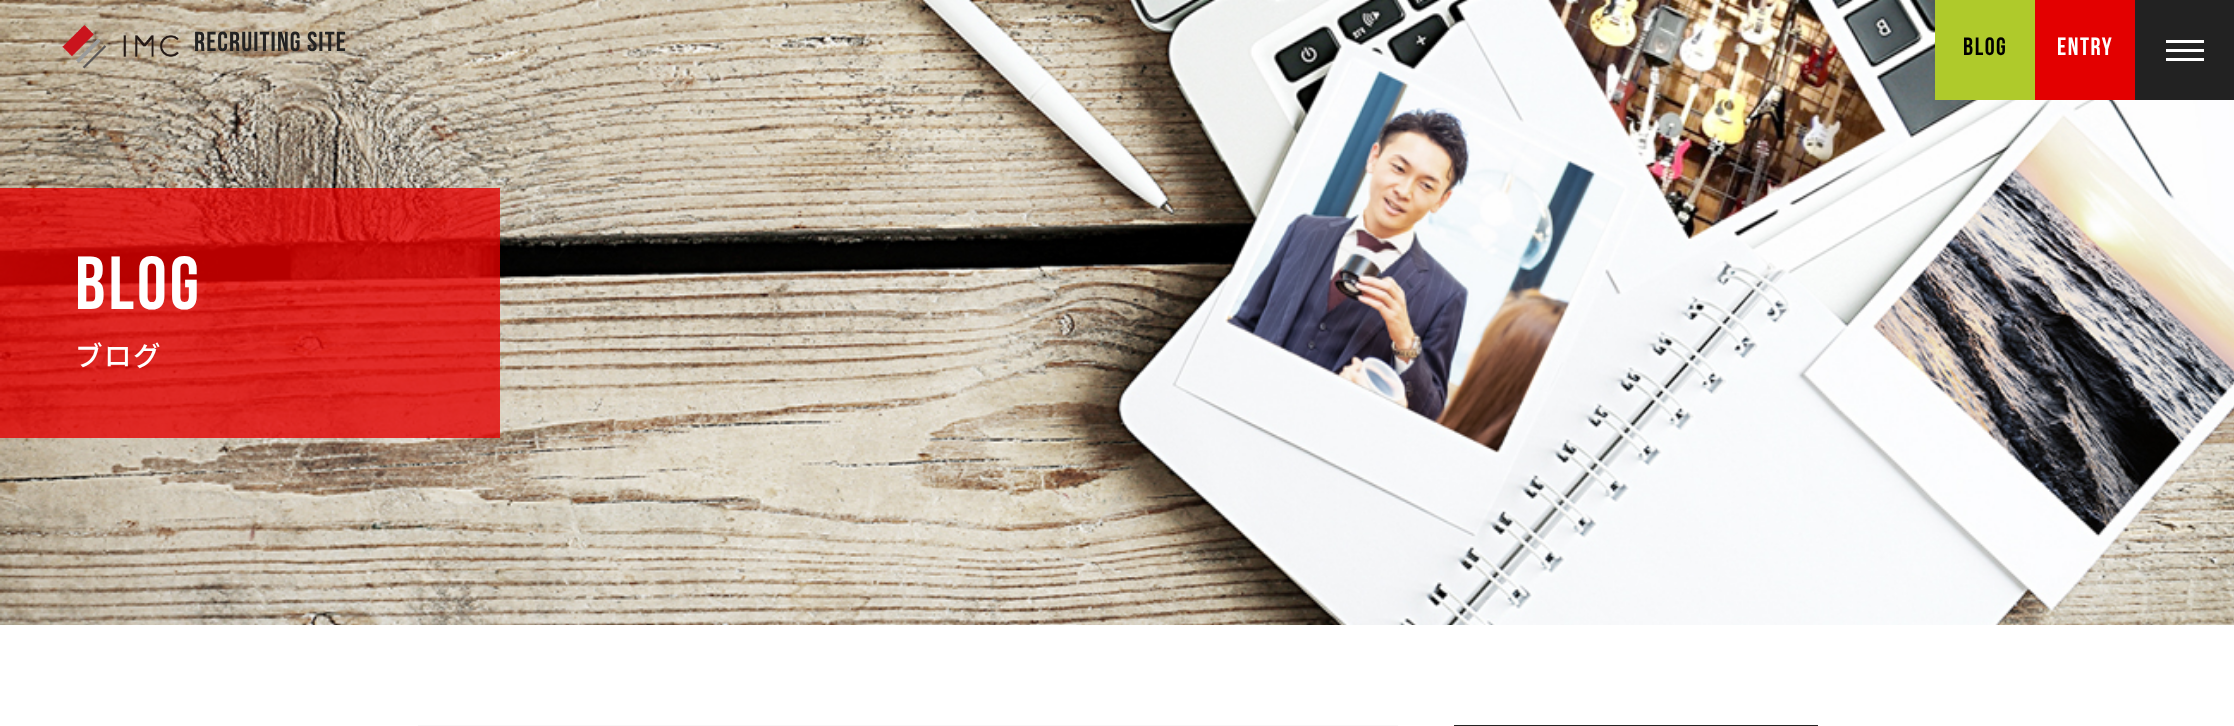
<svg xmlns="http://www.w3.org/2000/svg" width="2234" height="726">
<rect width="100%" height="100%" fill="#fff"/>
<image x="0" y="0" width="2234" height="625" href="media/1.png"/>
<image x="62" y="25" width="117" height="44" href="media/2.png"/>
<text x="194" y="51" style="font-family:Bebas Neue;font-size:27.5px;letter-spacing:1.1px;fill:#222">RECRUITING SITE</text>
<rect x="1935" width="100" height="100" fill="#afca2b"/>
<text x="1963" y="55" style="font-family:Bebas Neue;font-size:25px;letter-spacing:1.5px;fill:#000">BLOG</text>
<rect x="2035" width="100" height="100" fill="#e30000"/>
<text x="2057" y="55" style="font-family:Bebas Neue;font-size:25px;letter-spacing:1.5px;fill:#fff">ENTRY</text>
<rect x="2135" width="99" height="100" fill="#222"/>
<rect x="2166" y="49" width="38" height="3" fill="#fff"/>
<rect x="2166" y="40" width="38" height="3" fill="#fff"/>
<rect x="2166" y="58" width="38" height="3" fill="#fff"/>
<rect y="188" width="500" height="250" fill="#e30000cc"/>
<text x="75" y="309" style="font-family:Bebas Neue;font-size:75px;letter-spacing:3px;fill:#fff">BLOG</text>
<text x="75" y="366" style="font-family:Noto Sans JP;font-size:27.5px;font-weight:500;letter-spacing:1.5px;fill:#fff">ブログ</text>
<rect x="418" y="725" width="980" height="1" fill="#f8f8f8"/>
<rect x="1454" y="725" width="364" height="1" fill="#222"/>
</svg>
